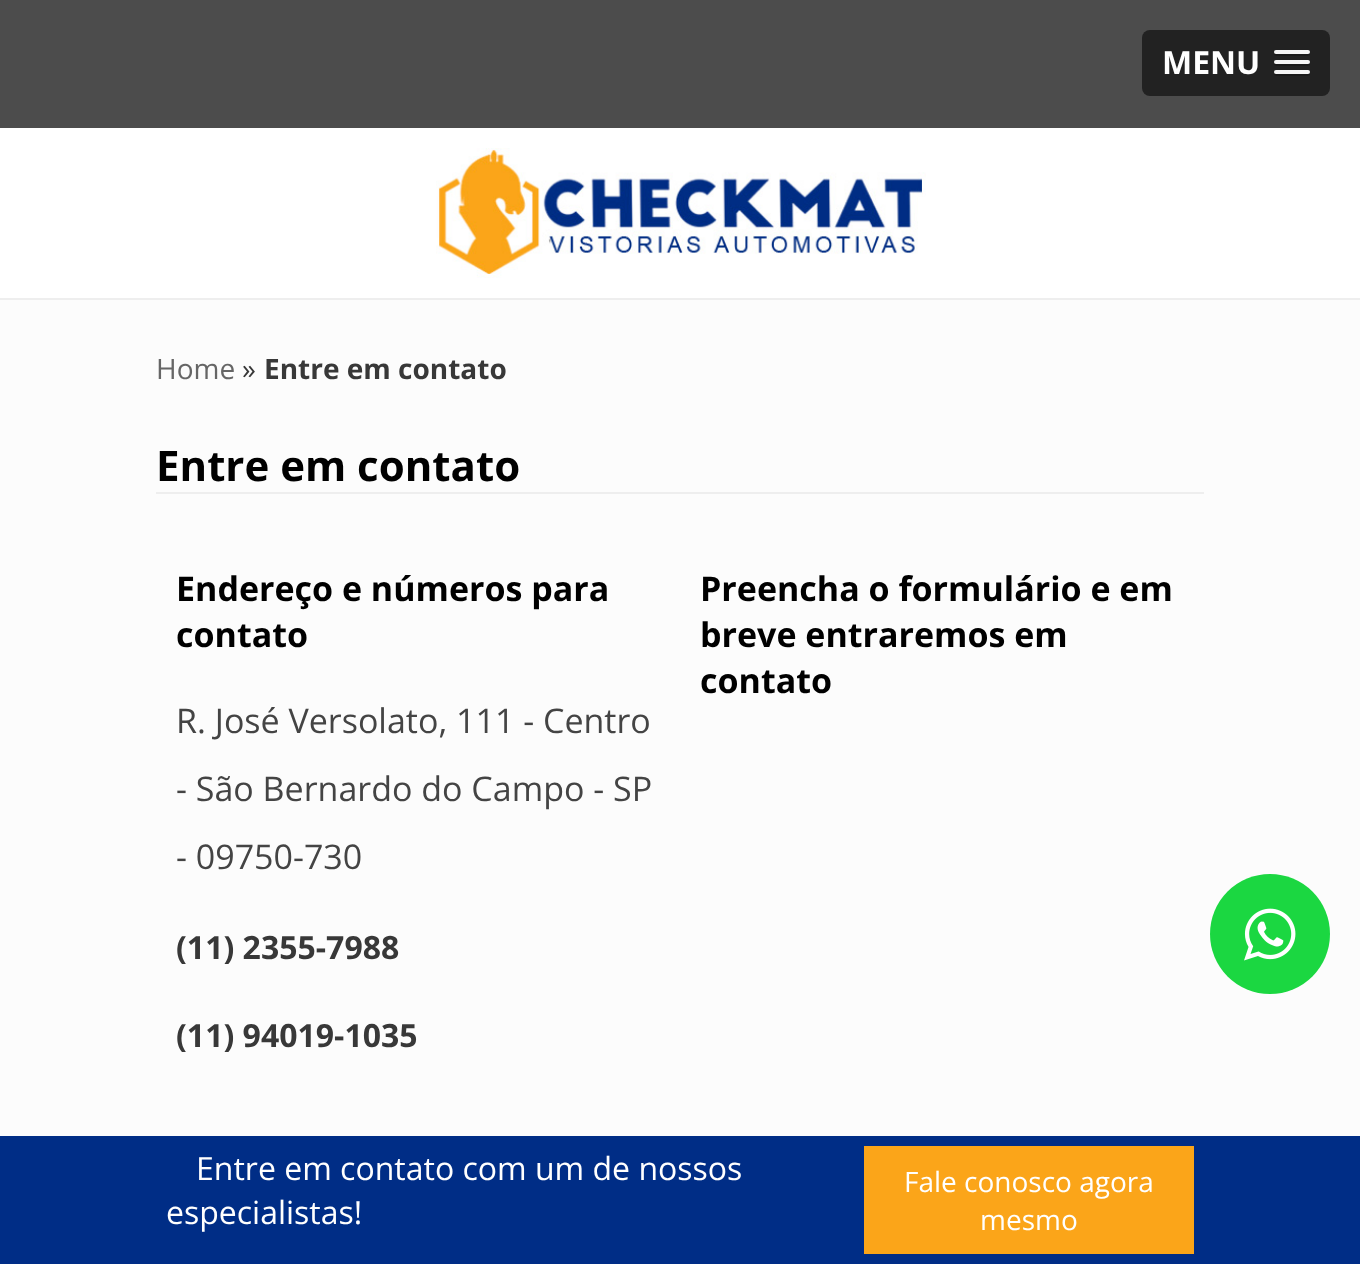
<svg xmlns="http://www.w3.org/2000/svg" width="1360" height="1264">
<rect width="100%" height="100%" fill="#fff"/>
<rect width="1360" height="128" fill="#4c4c4c"/>
<rect x="1142" y="30" width="188" height="66" rx="8" fill="#222"/>
<text x="1162" y="74" style="font-family:Open Sans;font-size:32px;font-weight:bold;fill:#fff">MENU</text>
<path d="M1274.5 53c-2.5 4 6.5 3 7 3h21c.5 0 9.5 1 7-3c0 .5-1 1-1.5 1h-32c-.5 0-1.5-.5-1.5-1z" fill="#1a1a1a"/>
<rect x="1274" y="50" width="36" height="4" rx="2" fill="#f5f5f5"/>
<path d="M1274.5 63c-2.5 4 6.5 3 7 3h21c.5 0 9.5 1 7-3c0 .5-1 1-1.5 1h-32c-.5 0-1.5-.5-1.5-1z" fill="#1a1a1a"/>
<rect x="1274" y="60" width="36" height="4" rx="2" fill="#f5f5f5"/>
<path d="M1274.5 73c-2.5 4 6.5 3 7 3h21c.5 0 9.5 1 7-3c0 .5-1 1-1.5 1h-32c-.5 0-1.5-.5-1.5-1z" fill="#1a1a1a"/>
<rect x="1274" y="70" width="36" height="4" rx="2" fill="#f5f5f5"/>
<image x="436" y="148" width="490" height="130" href="media/1.png"/>
<rect y="300" width="1360" height="836" fill="#fcfcfc"/>
<rect y="298" width="1360" height="2" fill="#eee"/>
<text x="156" y="379" style="font-family:Open Sans;font-size:28px;fill:#666">Home</text>
<text x="242" y="379" style="font-family:Open Sans;font-size:28px;fill:#383838">»</text>
<text x="264" y="379" style="font-family:Open Sans;font-size:28px;font-weight:bold;fill:#383838">Entre em contato</text>
<rect x="156" y="492" width="1048" height="2" fill="#eee"/>
<text x="156" y="481" style="font-family:Open Sans;font-size:42px;font-weight:bold;fill:#000">Entre em contato</text>
<text x="176" y="601" style="font-family:Open Sans;font-size:34px;font-weight:bold;fill:#000">Endereço e números para</text>
<text x="176" y="647" style="font-family:Open Sans;font-size:34px;font-weight:bold;fill:#000">contato</text>
<text x="176" y="733" style="font-family:Open Sans;font-size:34px;fill:#444">R. José Versolato, 111 - Centro</text>
<text x="176" y="801" style="font-family:Open Sans;font-size:34px;fill:#444">- São Bernardo do Campo - SP</text>
<text x="176" y="869" style="font-family:Open Sans;font-size:34px;fill:#444">- 09750-730</text>
<text x="176" y="959" style="font-family:Open Sans;font-size:32px;font-weight:bold;fill:#383838">(11) 2355-7988</text>
<text x="176" y="1047" style="font-family:Open Sans;font-size:32px;font-weight:bold;fill:#383838">(11) 94019-1035</text>
<text x="700" y="601" style="font-family:Open Sans;font-size:34px;font-weight:bold;fill:#000">Preencha o formulário e em</text>
<text x="700" y="647" style="font-family:Open Sans;font-size:34px;font-weight:bold;fill:#000">breve entraremos em</text>
<text x="700" y="693" style="font-family:Open Sans;font-size:34px;font-weight:bold;fill:#000">contato</text>
<circle cx="1270" cy="934" r="60" fill="#1bd741"/>
<image x="1244" y="908" width="52" height="53" href="media/2.png"/>
<rect y="1136" width="1360" height="128" fill="#002d86"/>
<text x="196" y="1180" style="font-family:Open Sans;font-size:32px;fill:#fff">Entre em contato com um de nossos</text>
<text x="166" y="1224" style="font-family:Open Sans;font-size:32px;fill:#fff">especialistas!</text>
<rect x="864" y="1146" width="330" height="108" fill="#fba519"/>
<text x="904" y="1192" style="font-family:Open Sans;font-size:28px;fill:#fff">Fale conosco agora</text>
<text x="980" y="1230" style="font-family:Open Sans;font-size:28px;fill:#fff">mesmo</text>
</svg>
